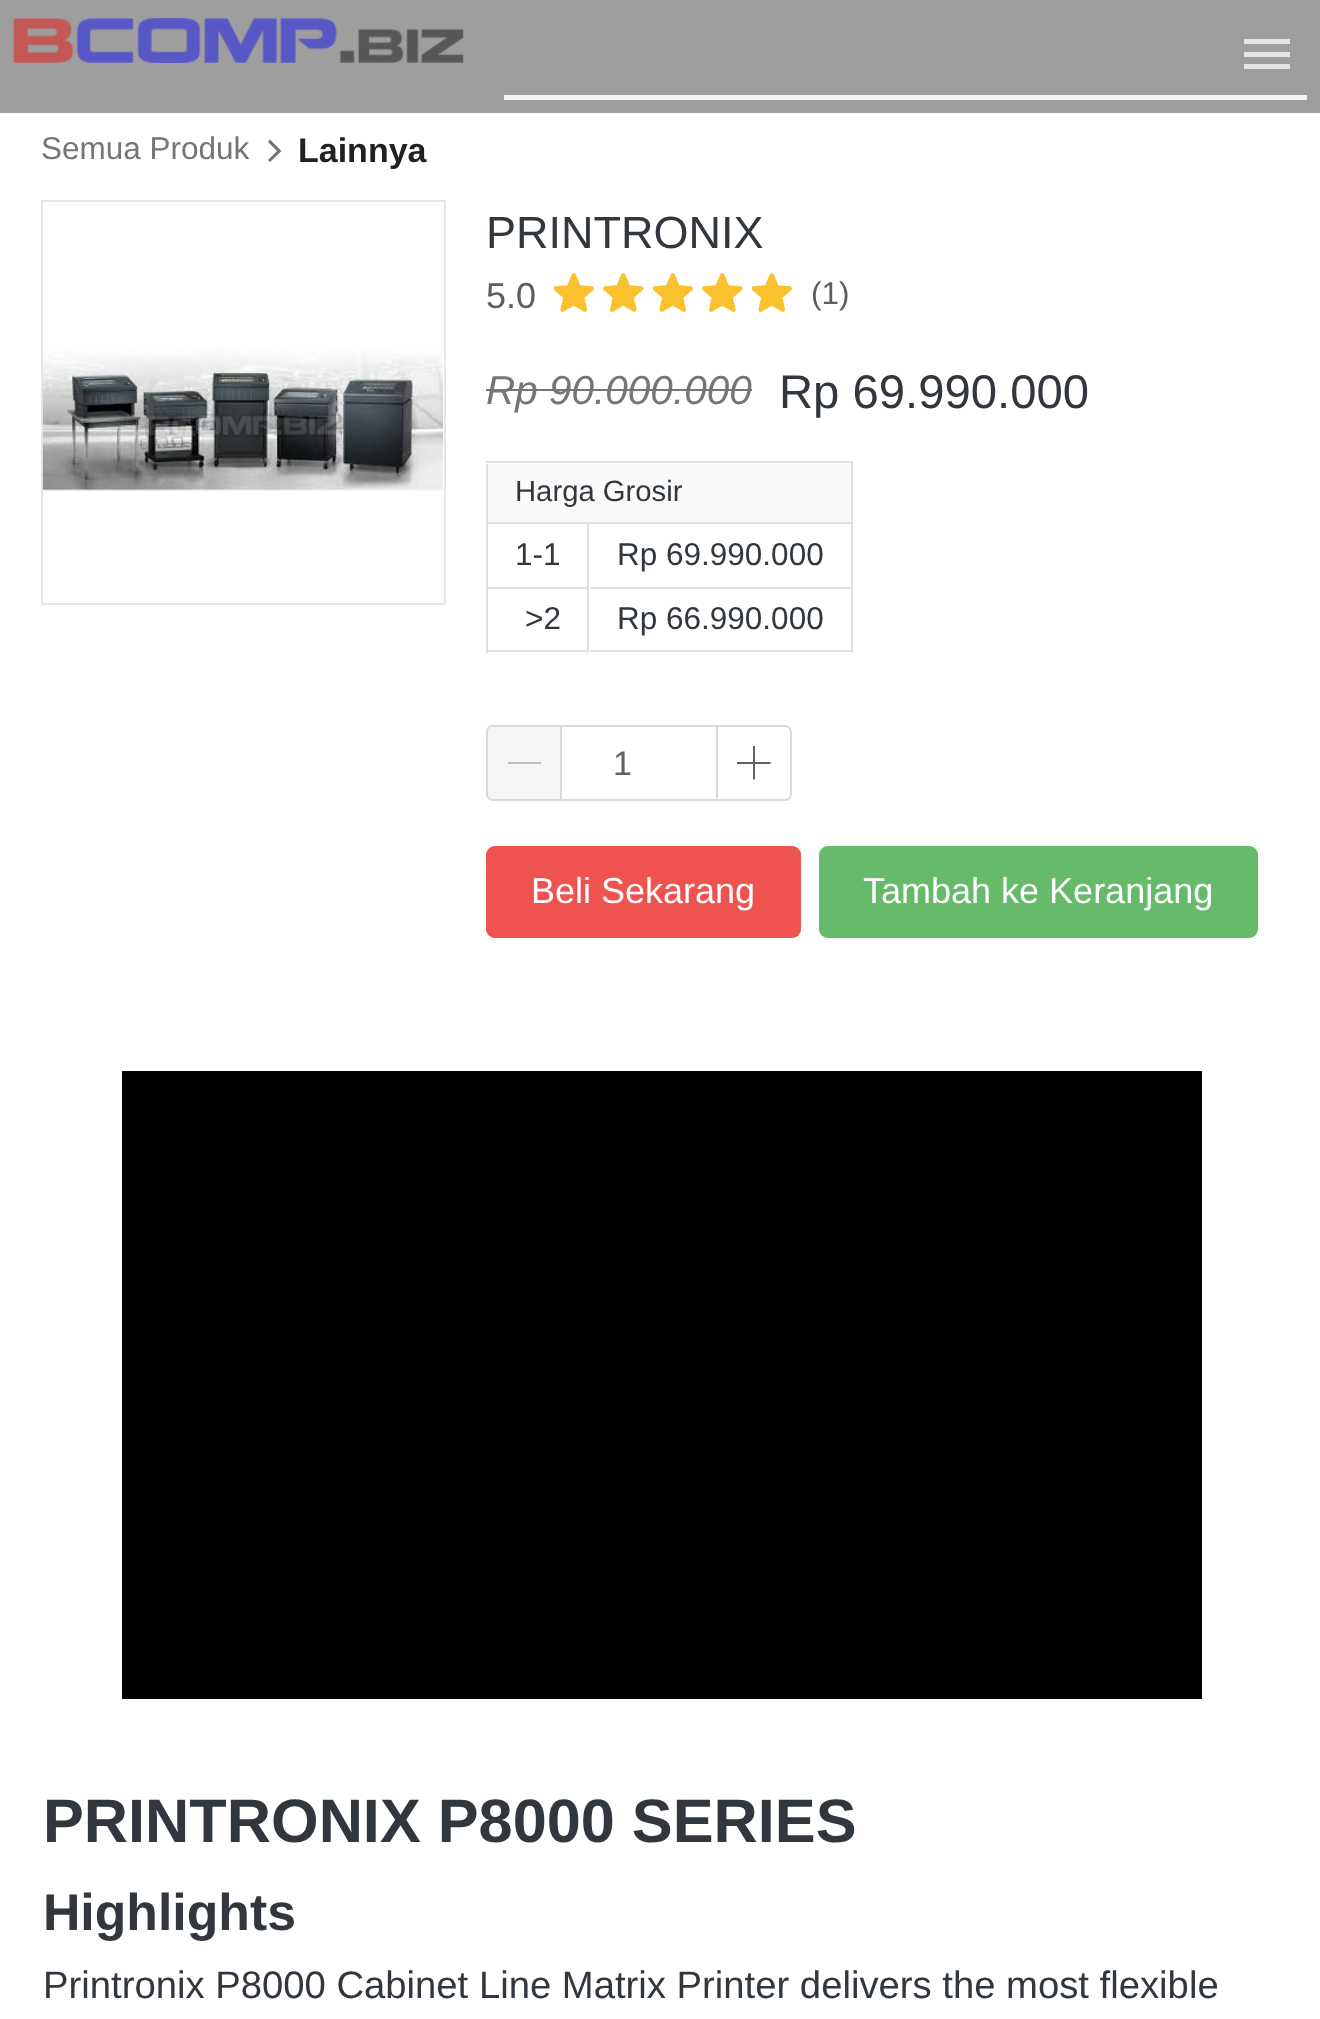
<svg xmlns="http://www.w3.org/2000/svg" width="1320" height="2019">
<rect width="100%" height="100%" fill="#fff"/>
<rect width="1320" height="113" fill="#9e9e9e"/>
<image x="13" y="18" width="451" height="45" href="media/1.png"/>
<path d="M1244 69h46v-5h-46zm0-12h46v-5h-46zm0-18v5h46v-5z" fill="#e4e4e4"/>
<rect x="504" y="95" width="803" height="5" fill="#f5f5f5"/>
<text x="41" y="159" style="font-family:Liberation Sans;font-size:31.5px;fill:#757575">Semua Produk</text>
<path d="M277 151l-9 9l2 2l11.5-11l-11.5-11.5l-2 2.5z" fill="#757575"/>
<text x="298" y="162" style="font-family:Liberation Sans;font-size:34px;font-weight:bold;fill:#212121">Lainnya</text>
<rect x="42" y="201" width="403" height="403" fill="none" stroke="#e6e6e6" stroke-width="2"/>
<image x="42" y="348" width="402" height="143" href="media/2.png"/>
<text x="486" y="248" style="font-family:Liberation Sans;font-size:45px;fill:#31373d">PRINTRONIX</text>
<text x="486" y="308" style="font-family:Liberation Sans;font-size:36px;fill:#5a5f64">5.0</text>
<image x="554" y="273" width="40" height="39" href="media/3.png"/>
<image x="603" y="273" width="41" height="39" href="media/4.png"/>
<image x="653" y="273" width="40" height="39" href="media/3.png"/>
<image x="702" y="273" width="41" height="39" href="media/4.png"/>
<image x="752" y="273" width="40" height="39" href="media/3.png"/>
<text x="811" y="304" style="font-family:Liberation Sans;font-size:31.5px;fill:#5a5f64">(1)</text>
<text x="486" y="404" style="font-family:Liberation Sans;font-size:40.5px;font-style:italic;fill:#757575">Rp 90.000.000</text>
<rect x="486" y="389" width="266" height="2" fill="#757575"/>
<text x="779" y="408" style="font-family:Liberation Sans;font-size:47.25px;fill:#31373d">Rp 69.990.000</text>
<rect x="486" y="461" width="367" height="2" fill="#e0e0e0"/>
<rect x="851" y="461" width="2" height="192" fill="#e0e0e0"/>
<rect x="488" y="464" width="363" height="58" fill="#fafafa"/>
<rect x="486" y="522" width="365" height="2" fill="#e0e0e0"/>
<rect x="486" y="464" width="2" height="189" fill="#e0e0e0"/>
<text x="515" y="501" style="font-family:Liberation Sans;font-size:29.25px;fill:#31373d">Harga Grosir</text>
<rect x="488" y="587" width="99" height="2" fill="#e0e0e0"/>
<text x="515" y="565" style="font-family:Liberation Sans;font-size:31.5px;fill:#31373d">1-1</text>
<rect x="488" y="650" width="99" height="2" fill="#e0e0e0"/>
<text x="525" y="629" style="font-family:Liberation Sans;font-size:31.5px;fill:#31373d">&gt;2</text>
<rect x="587" y="524" width="2" height="129" fill="#e0e0e0"/>
<rect x="590" y="587" width="261" height="2" fill="#e0e0e0"/>
<text x="617" y="565" style="font-family:Liberation Sans;font-size:31.5px;fill:#31373d">Rp 69.990.000</text>
<rect x="590" y="650" width="261" height="2" fill="#e0e0e0"/>
<text x="617" y="629" style="font-family:Liberation Sans;font-size:31.5px;fill:#31373d">Rp 66.990.000</text>
<rect x="487" y="726" width="304" height="74" rx="6" fill="none" stroke="#d9d9d9" stroke-width="2"/>
<path d="M493 727h67v72h-67c-3 0-5-2-5-5v-62c0-3 2-5 5-5z" fill="#f5f5f5"/>
<rect x="508" y="762" width="33" height="2" fill="#bdbdbd"/>
<rect x="716" y="727" width="2" height="72" fill="#d9d9d9"/>
<rect x="560" y="727" width="2" height="72" fill="#d9d9d9"/>
<text x="613" y="775" style="font-family:Liberation Sans;font-size:34px;fill:#616161">1</text>
<path d="M770.5 764h-15.5v15.5h-2v-15.5h-16v-2h16v-16h2v16h15.5z" fill="#616161"/>
<rect x="486" y="846" width="315" height="92" rx="9" fill="#ef5350"/>
<rect x="487" y="847" width="313" height="90" rx="8" fill="none" stroke="#ef535080" stroke-width="2"/>
<text x="531" y="903" style="font-family:Liberation Sans;font-size:36px;fill:#fff">Beli Sekarang</text>
<rect x="819" y="846" width="439" height="92" rx="9" fill="#66bb6a"/>
<rect x="820" y="847" width="437" height="90" rx="8" fill="none" stroke="#66bb6a80" stroke-width="2"/>
<text x="863" y="903" style="font-family:Liberation Sans;font-size:36px;fill:#fff">Tambah ke Keranjang</text>
<rect x="122" y="1071" width="1080" height="628" fill="#000"/>
<text x="43" y="1842" style="font-family:Liberation Sans;font-size:61.25px;font-weight:bold;fill:#31373d">PRINTRONIX P8000 SERIES</text>
<text x="43" y="1930" style="font-family:Liberation Sans;font-size:51.75px;font-weight:bold;fill:#31373d">Highlights</text>
<text x="43" y="1998" style="font-family:Liberation Sans;font-size:38.25px;fill:#31373d">Printronix P8000 Cabinet Line Matrix Printer delivers the most flexible</text>
</svg>
